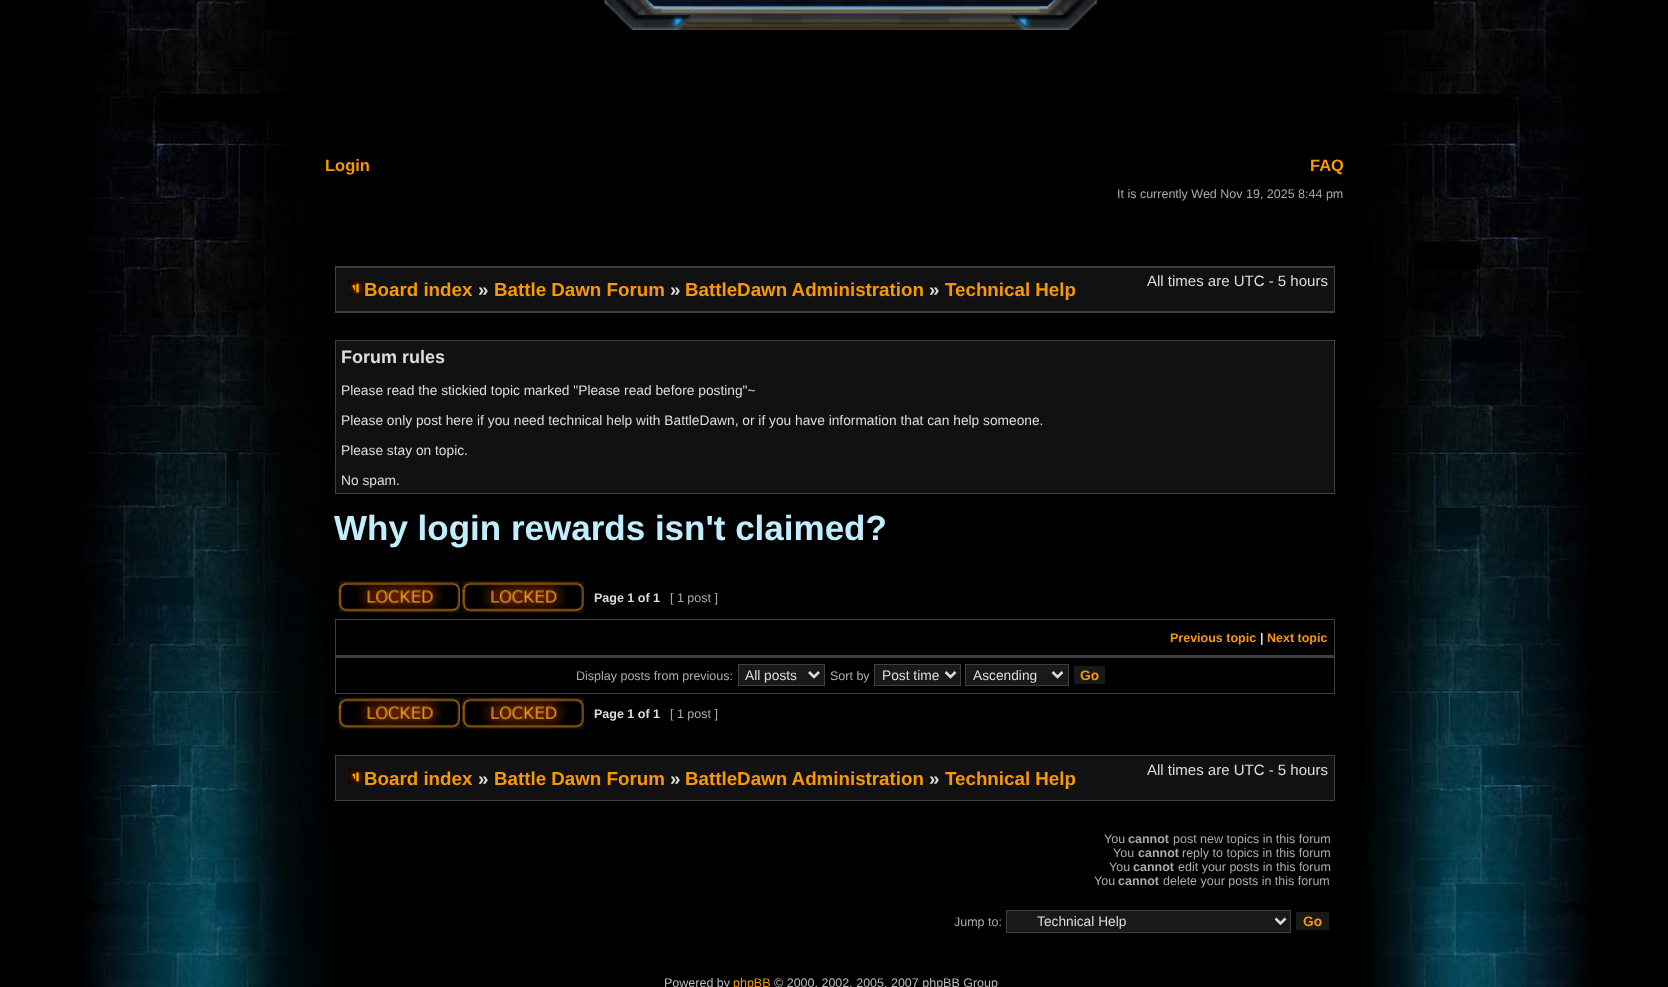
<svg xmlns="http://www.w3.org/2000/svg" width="1668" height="987">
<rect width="100%" height="100%" fill="#000"/>
<image x="81" y="0" width="1509" height="987" href="media/1.png"/>
<image x="266" y="0" width="1168" height="30" href="media/2.png"/>
<text x="325" y="171" style="font-family:Liberation Sans;font-size:16.5px;font-weight:bold;fill:#fa9800">Login</text>
<text x="1310" y="171" style="font-family:Liberation Sans;font-size:16.5px;font-weight:bold;fill:#fa9800">FAQ</text>
<text x="1117" y="198" style="font-family:Liberation Sans;font-size:12.5px;fill:#ababab">It is currently Wed Nov 19, 2025 8:44 pm</text>
<rect x="335" y="266" width="1000" height="47" fill="#3f3f3f"/>
<rect x="336" y="268" width="998" height="43" fill="#111"/>
<image x="348" y="280" width="16" height="15" href="media/3.png"/>
<text x="364" y="296" style="font-family:Liberation Sans;font-size:18.75px;font-weight:bold;fill:#fa9800">Board index</text>
<text x="478" y="296" style="font-family:Liberation Sans;font-size:18.75px;font-weight:bold;fill:#ddd">»</text>
<text x="494" y="296" style="font-family:Liberation Sans;font-size:18.75px;font-weight:bold;fill:#fa9800">Battle Dawn Forum</text>
<text x="670" y="296" style="font-family:Liberation Sans;font-size:18.75px;font-weight:bold;fill:#ddd">»</text>
<text x="685" y="296" style="font-family:Liberation Sans;font-size:18.75px;font-weight:bold;fill:#fa9800">BattleDawn Administration</text>
<text x="929" y="296" style="font-family:Liberation Sans;font-size:18.75px;font-weight:bold;fill:#ddd">»</text>
<text x="945" y="296" style="font-family:Liberation Sans;font-size:18.75px;font-weight:bold;fill:#fa9800">Technical Help</text>
<text x="1147" y="286" style="font-family:Liberation Sans;font-size:15px;fill:#ddd">All times are UTC - 5 hours</text>
<rect x="335.5" y="340.5" width="999" height="153" fill="#111" stroke="#3f3f3f"/>
<text x="341" y="363" style="font-family:Liberation Sans;font-size:18px;font-weight:bold;fill:#ddd">Forum rules</text>
<text x="341" y="395" style="font-family:Liberation Sans;font-size:13.75px;fill:#ddd">Please read the stickied topic marked "Please read before posting"~</text>
<text x="341" y="425" style="font-family:Liberation Sans;font-size:13.75px;fill:#ddd">Please only post here if you need technical help with BattleDawn, or if you have information that can help someone.</text>
<text x="341" y="455" style="font-family:Liberation Sans;font-size:13.75px;fill:#ddd">Please stay on topic.</text>
<text x="341" y="485" style="font-family:Liberation Sans;font-size:13.75px;fill:#ddd">No spam.</text>
<text x="334" y="540" style="font-family:Liberation Sans;font-size:35px;font-weight:bold;fill:#c1eeff">Why login rewards isn't claimed?</text>
<image x="338" y="581" width="122" height="32" href="media/4.png"/>
<image x="462" y="581" width="122" height="32" href="media/5.png"/>
<text x="594" y="602" style="font-family:Liberation Sans;font-size:12.5px;font-weight:bold;fill:#ddd">Page 1 of 1</text>
<text x="670" y="602" style="font-family:Liberation Sans;font-size:12.5px;fill:#ababab">[ 1 post ]</text>
<rect x="335" y="619" width="1000" height="75" fill="#3f3f3f"/>
<rect x="336" y="620" width="998" height="35" fill="#000"/>
<text x="1170" y="642" style="font-family:Liberation Sans;font-size:12.5px;font-weight:bold;fill:#fa9800">Previous topic</text>
<text x="1260" y="642" style="font-family:Liberation Sans;font-size:12.5px;font-weight:bold;fill:#ddd">|</text>
<text x="1267" y="642" style="font-family:Liberation Sans;font-size:12.5px;font-weight:bold;fill:#fa9800">Next topic</text>
<rect x="336" y="658" width="998" height="35" fill="#000"/>
<text x="576" y="680" style="font-family:Liberation Sans;font-size:12.5px;fill:#ababab">Display posts from previous:</text>
<rect x="738.5" y="664.5" width="86" height="21" fill="#191919" stroke="#3f3f3f"/>
<path d="M809 672l5 5l5-5" fill="none" stroke="#ddd" stroke-width="2.5"/>
<text x="745" y="680" style="font-family:Liberation Sans;font-size:13.75px;fill:#ddd">All posts</text>
<text x="830" y="680" style="font-family:Liberation Sans;font-size:12.5px;fill:#ababab">Sort by</text>
<rect x="874.5" y="664.5" width="86" height="21" fill="#191919" stroke="#3f3f3f"/>
<path d="M945.5 672l5 5l5-5" fill="none" stroke="#ddd" stroke-width="2.5"/>
<text x="882" y="680" style="font-family:Liberation Sans;font-size:13.75px;fill:#ddd">Post time</text>
<rect x="965.5" y="664.5" width="103" height="21" fill="#191919" stroke="#3f3f3f"/>
<path d="M1052.5 672l5 5l5-5" fill="none" stroke="#ddd" stroke-width="2.5"/>
<text x="973" y="680" style="font-family:Liberation Sans;font-size:13.75px;fill:#ddd">Ascending</text>
<rect x="1074" y="666" width="31" height="18" fill="#191919"/>
<text x="1080" y="680" style="font-family:Liberation Sans;font-size:13.75px;font-weight:bold;fill:#fa9800">Go</text>
<image x="338" y="697" width="122" height="32" href="media/6.png"/>
<image x="462" y="697" width="122" height="32" href="media/7.png"/>
<text x="594" y="718" style="font-family:Liberation Sans;font-size:12.5px;font-weight:bold;fill:#ddd">Page 1 of 1</text>
<text x="670" y="718" style="font-family:Liberation Sans;font-size:12.5px;fill:#ababab">[ 1 post ]</text>
<rect x="335" y="755" width="1000" height="46" fill="#3f3f3f"/>
<rect x="336" y="756" width="998" height="44" fill="#111"/>
<image x="348" y="768" width="16" height="16" href="media/8.png"/>
<text x="364" y="785" style="font-family:Liberation Sans;font-size:18.75px;font-weight:bold;fill:#fa9800">Board index</text>
<text x="478" y="785" style="font-family:Liberation Sans;font-size:18.75px;font-weight:bold;fill:#ddd">»</text>
<text x="494" y="785" style="font-family:Liberation Sans;font-size:18.75px;font-weight:bold;fill:#fa9800">Battle Dawn Forum</text>
<text x="670" y="785" style="font-family:Liberation Sans;font-size:18.75px;font-weight:bold;fill:#ddd">»</text>
<text x="685" y="785" style="font-family:Liberation Sans;font-size:18.75px;font-weight:bold;fill:#fa9800">BattleDawn Administration</text>
<text x="929" y="785" style="font-family:Liberation Sans;font-size:18.75px;font-weight:bold;fill:#ddd">»</text>
<text x="945" y="785" style="font-family:Liberation Sans;font-size:18.75px;font-weight:bold;fill:#fa9800">Technical Help</text>
<text x="1147" y="775" style="font-family:Liberation Sans;font-size:15px;fill:#ddd">All times are UTC - 5 hours</text>
<text x="1104" y="843" style="font-family:Liberation Sans;font-size:12.5px;fill:#ababab">You</text>
<text x="1128" y="843" style="font-family:Liberation Sans;font-size:12.5px;font-weight:bold;fill:#ababab">cannot</text>
<text x="1173" y="843" style="font-family:Liberation Sans;font-size:12.5px;fill:#ababab">post new topics in this forum</text>
<text x="1113" y="857" style="font-family:Liberation Sans;font-size:12.5px;fill:#ababab">You</text>
<text x="1138" y="857" style="font-family:Liberation Sans;font-size:12.5px;font-weight:bold;fill:#ababab">cannot</text>
<text x="1182" y="857" style="font-family:Liberation Sans;font-size:12.5px;fill:#ababab">reply to topics in this forum</text>
<text x="1109" y="871" style="font-family:Liberation Sans;font-size:12.5px;fill:#ababab">You</text>
<text x="1133" y="871" style="font-family:Liberation Sans;font-size:12.5px;font-weight:bold;fill:#ababab">cannot</text>
<text x="1178" y="871" style="font-family:Liberation Sans;font-size:12.5px;fill:#ababab">edit your posts in this forum</text>
<text x="1094" y="885" style="font-family:Liberation Sans;font-size:12.5px;fill:#ababab">You</text>
<text x="1118" y="885" style="font-family:Liberation Sans;font-size:12.5px;font-weight:bold;fill:#ababab">cannot</text>
<text x="1163" y="885" style="font-family:Liberation Sans;font-size:12.5px;fill:#ababab">delete your posts in this forum</text>
<text x="954" y="926" style="font-family:Liberation Sans;font-size:12.5px;fill:#ababab">Jump to:</text>
<rect x="1006.5" y="910.5" width="284" height="22" fill="#191919" stroke="#3f3f3f"/>
<path d="M1275.5 918.5l5 5l5-5" fill="none" stroke="#ddd" stroke-width="2.5"/>
<text x="1037" y="926" style="font-family:Liberation Sans;font-size:13.75px;fill:#ddd">Technical Help</text>
<rect x="1296" y="912" width="33" height="18" fill="#191919"/>
<text x="1303" y="926" style="font-family:Liberation Sans;font-size:13.75px;font-weight:bold;fill:#fa9800">Go</text>
<text x="664" y="987" style="font-family:Liberation Sans;font-size:12.5px;fill:#bbb">Powered by</text>
<text x="733" y="987" style="font-family:Liberation Sans;font-size:12.5px;fill:#fa9800">phpBB</text>
<text x="774" y="987" style="font-family:Liberation Sans;font-size:12.5px;fill:#bbb">© 2000, 2002, 2005, 2007 phpBB Group</text>
</svg>
